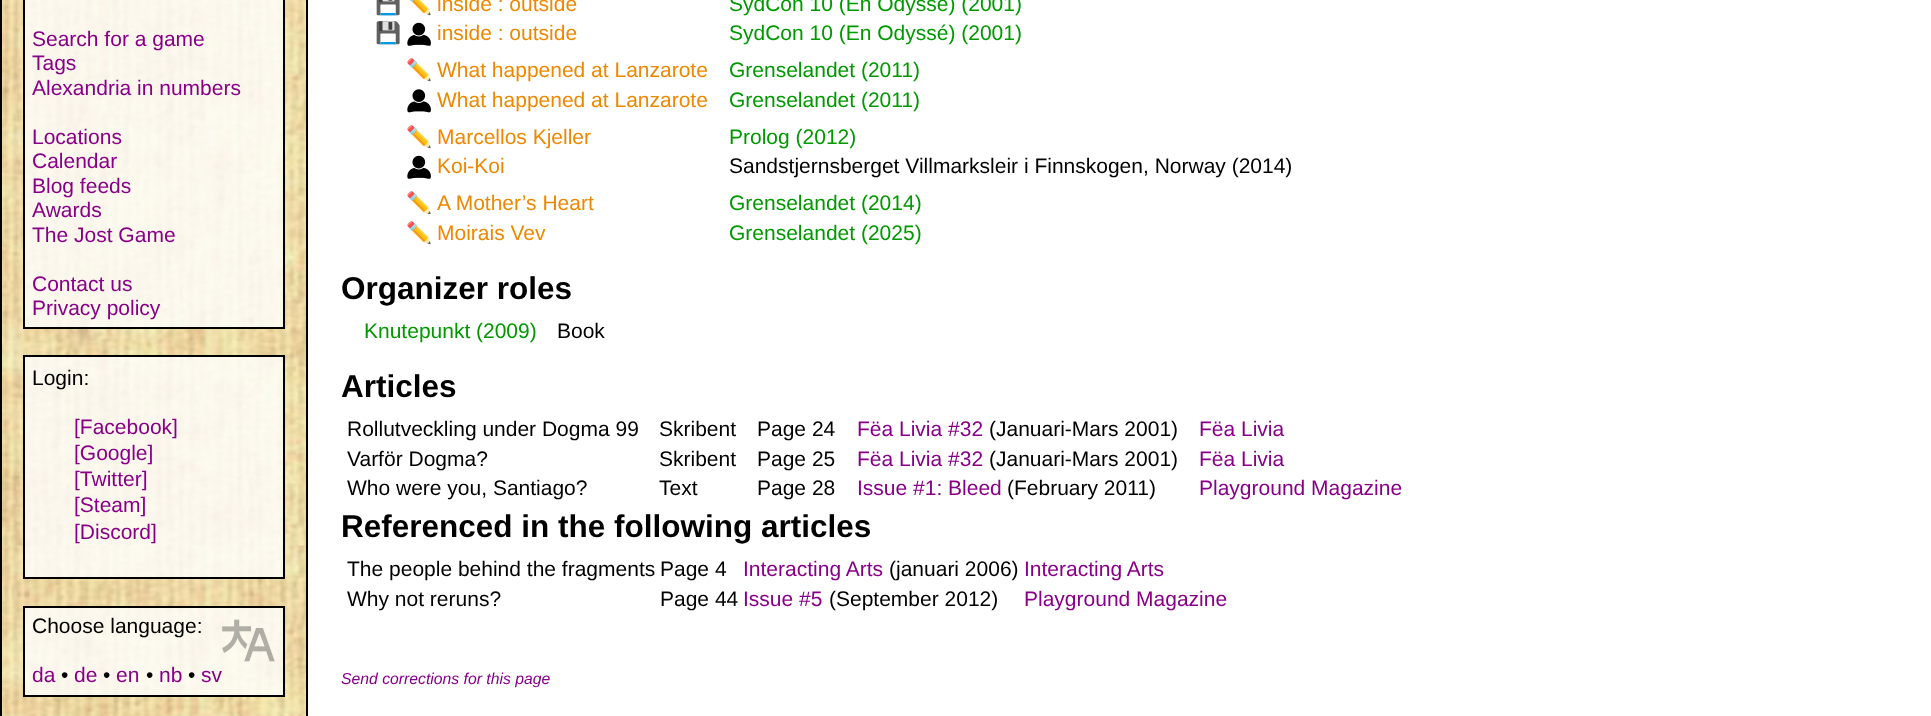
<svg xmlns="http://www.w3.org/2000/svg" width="1931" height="716">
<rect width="100%" height="100%" fill="#fff"/>
<image x="2" y="0" width="304" height="716" href="media/1.png"/>
<rect x="1" y="-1" width="306" height="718" fill="none" stroke="#000" stroke-width="2"/>
<rect x="24" y="-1" width="260" height="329" fill="#ffffffcc" stroke="#000" stroke-width="2"/>
<text x="32" y="46" style="font-family:Liberation Sans;font-size:21px;fill:#808">Search for a game</text>
<text x="32" y="70" style="font-family:Liberation Sans;font-size:21px;fill:#808">Tags</text>
<text x="32" y="95" style="font-family:Liberation Sans;font-size:21px;fill:#808">Alexandria in numbers</text>
<text x="32" y="144" style="font-family:Liberation Sans;font-size:21px;fill:#808">Locations</text>
<text x="32" y="168" style="font-family:Liberation Sans;font-size:21px;fill:#808">Calendar</text>
<text x="32" y="193" style="font-family:Liberation Sans;font-size:21px;fill:#808">Blog feeds</text>
<text x="32" y="217" style="font-family:Liberation Sans;font-size:21px;fill:#808">Awards</text>
<text x="32" y="242" style="font-family:Liberation Sans;font-size:21px;fill:#808">The Jost Game</text>
<text x="32" y="291" style="font-family:Liberation Sans;font-size:21px;fill:#808">Contact us</text>
<text x="32" y="315" style="font-family:Liberation Sans;font-size:21px;fill:#808">Privacy policy</text>
<rect x="24" y="356" width="260" height="222" fill="#ffffffcc" stroke="#000" stroke-width="2"/>
<text x="32" y="385" style="font-family:Liberation Sans;font-size:21px;fill:#000">Login:</text>
<text x="74" y="434" style="font-family:Liberation Sans;font-size:21px;fill:#808">[Facebook]</text>
<text x="74" y="460" style="font-family:Liberation Sans;font-size:21px;fill:#808">[Google]</text>
<text x="74" y="486" style="font-family:Liberation Sans;font-size:21px;fill:#808">[Twitter]</text>
<text x="74" y="512" style="font-family:Liberation Sans;font-size:21px;fill:#808">[Steam]</text>
<text x="74" y="539" style="font-family:Liberation Sans;font-size:21px;fill:#808">[Discord]</text>
<rect x="24" y="607" width="260" height="89" fill="#ffffffcc" stroke="#000" stroke-width="2"/>
<text x="32" y="633" style="font-family:Liberation Sans;font-size:21px;fill:#000">Choose language:</text>
<image x="222" y="619" width="53" height="43" href="media/2.png"/>
<text x="32" y="682" style="font-family:Liberation Sans;font-size:21px;fill:#808">da</text>
<text x="61" y="682" style="font-family:Liberation Sans;font-size:21px;fill:#000">•</text>
<text x="74" y="682" style="font-family:Liberation Sans;font-size:21px;fill:#808">de</text>
<text x="103" y="682" style="font-family:Liberation Sans;font-size:21px;fill:#000">•</text>
<text x="116" y="682" style="font-family:Liberation Sans;font-size:21px;fill:#808">en</text>
<text x="146" y="682" style="font-family:Liberation Sans;font-size:21px;fill:#000">•</text>
<text x="159" y="682" style="font-family:Liberation Sans;font-size:21px;fill:#808">nb</text>
<text x="188" y="682" style="font-family:Liberation Sans;font-size:21px;fill:#000">•</text>
<text x="201" y="682" style="font-family:Liberation Sans;font-size:21px;fill:#808">sv</text>
<text x="375" y="11" style="font-family:Noto Color Emoji;font-size:21px;fill:#808">💾</text>
<text x="406" y="11" style="font-family:Noto Color Emoji;font-size:21px;fill:#000">✏️</text>
<text x="437" y="11" style="font-family:Liberation Sans;font-size:21px;fill:#e80">inside : outside</text>
<text x="729" y="11" style="font-family:Liberation Sans;font-size:21px;fill:#090">SydCon 10 (En Odyssé) (2001)</text>
<text x="375" y="40" style="font-family:Noto Color Emoji;font-size:21px;fill:#808">💾</text>
<image x="407" y="22" width="24" height="24" href="media/3.png"/>
<text x="437" y="40" style="font-family:Liberation Sans;font-size:21px;fill:#e80">inside : outside</text>
<text x="729" y="40" style="font-family:Liberation Sans;font-size:21px;fill:#090">SydCon 10 (En Odyssé) (2001)</text>
<text x="406" y="77" style="font-family:Noto Color Emoji;font-size:21px;fill:#000">✏️</text>
<text x="437" y="77" style="font-family:Liberation Sans;font-size:21px;fill:#e80">What happened at Lanzarote</text>
<text x="729" y="77" style="font-family:Liberation Sans;font-size:21px;fill:#090">Grenselandet (2011)</text>
<image x="407" y="89" width="24" height="24" href="media/4.png"/>
<text x="437" y="107" style="font-family:Liberation Sans;font-size:21px;fill:#e80">What happened at Lanzarote</text>
<text x="729" y="107" style="font-family:Liberation Sans;font-size:21px;fill:#090">Grenselandet (2011)</text>
<text x="406" y="144" style="font-family:Noto Color Emoji;font-size:21px;fill:#000">✏️</text>
<text x="437" y="144" style="font-family:Liberation Sans;font-size:21px;fill:#e80">Marcellos Kjeller</text>
<text x="729" y="144" style="font-family:Liberation Sans;font-size:21px;fill:#090">Prolog (2012)</text>
<image x="407" y="155" width="24" height="24" href="media/3.png"/>
<text x="437" y="173" style="font-family:Liberation Sans;font-size:21px;fill:#e80">Koi-Koi</text>
<text x="729" y="173" style="font-family:Liberation Sans;font-size:21px;fill:#000">Sandstjernsberget Villmarksleir i Finnskogen, Norway (2014)</text>
<text x="406" y="210" style="font-family:Noto Color Emoji;font-size:21px;fill:#000">✏️</text>
<text x="437" y="210" style="font-family:Liberation Sans;font-size:21px;fill:#e80">A Mother’s Heart</text>
<text x="729" y="210" style="font-family:Liberation Sans;font-size:21px;fill:#090">Grenselandet (2014)</text>
<text x="406" y="240" style="font-family:Noto Color Emoji;font-size:21px;fill:#000">✏️</text>
<text x="437" y="240" style="font-family:Liberation Sans;font-size:21px;fill:#e80">Moirais Vev</text>
<text x="729" y="240" style="font-family:Liberation Sans;font-size:21px;fill:#090">Grenselandet (2025)</text>
<text x="341" y="299" style="font-family:Liberation Sans;font-size:31.5px;font-weight:bold;fill:#000">Organizer roles</text>
<text x="364" y="338" style="font-family:Liberation Sans;font-size:21px;fill:#090">Knutepunkt</text>
<text x="476" y="338" style="font-family:Liberation Sans;font-size:21px;fill:#090">(2009)</text>
<text x="557" y="338" style="font-family:Liberation Sans;font-size:21px;fill:#000">Book</text>
<text x="341" y="397" style="font-family:Liberation Sans;font-size:31.5px;font-weight:bold;fill:#000">Articles</text>
<text x="347" y="436" style="font-family:Liberation Sans;font-size:21px;fill:#000">Rollutveckling under Dogma 99</text>
<text x="659" y="436" style="font-family:Liberation Sans;font-size:21px;fill:#000">Skribent</text>
<text x="757" y="436" style="font-family:Liberation Sans;font-size:21px;fill:#000">Page 24</text>
<text x="857" y="436" style="font-family:Liberation Sans;font-size:21px;fill:#808">Fëa Livia #32</text>
<text x="989" y="436" style="font-family:Liberation Sans;font-size:21px;fill:#000">(Januari-Mars 2001)</text>
<text x="1199" y="436" style="font-family:Liberation Sans;font-size:21px;fill:#808">Fëa Livia</text>
<text x="347" y="466" style="font-family:Liberation Sans;font-size:21px;fill:#000">Varför Dogma?</text>
<text x="659" y="466" style="font-family:Liberation Sans;font-size:21px;fill:#000">Skribent</text>
<text x="757" y="466" style="font-family:Liberation Sans;font-size:21px;fill:#000">Page 25</text>
<text x="857" y="466" style="font-family:Liberation Sans;font-size:21px;fill:#808">Fëa Livia #32</text>
<text x="989" y="466" style="font-family:Liberation Sans;font-size:21px;fill:#000">(Januari-Mars 2001)</text>
<text x="1199" y="466" style="font-family:Liberation Sans;font-size:21px;fill:#808">Fëa Livia</text>
<text x="347" y="495" style="font-family:Liberation Sans;font-size:21px;fill:#000">Who were you, Santiago?</text>
<text x="659" y="495" style="font-family:Liberation Sans;font-size:21px;fill:#000">Text</text>
<text x="757" y="495" style="font-family:Liberation Sans;font-size:21px;fill:#000">Page 28</text>
<text x="857" y="495" style="font-family:Liberation Sans;font-size:21px;fill:#808">Issue #1: Bleed</text>
<text x="1007" y="495" style="font-family:Liberation Sans;font-size:21px;fill:#000">(February 2011)</text>
<text x="1199" y="495" style="font-family:Liberation Sans;font-size:21px;fill:#808">Playground Magazine</text>
<text x="341" y="537" style="font-family:Liberation Sans;font-size:31.5px;font-weight:bold;fill:#000">Referenced in the following articles</text>
<text x="347" y="576" style="font-family:Liberation Sans;font-size:21px;fill:#000">The people behind the fragments</text>
<text x="660" y="576" style="font-family:Liberation Sans;font-size:21px;fill:#000">Page 4</text>
<text x="743" y="576" style="font-family:Liberation Sans;font-size:21px;fill:#808">Interacting Arts</text>
<text x="889" y="576" style="font-family:Liberation Sans;font-size:21px;fill:#000">(januari 2006)</text>
<text x="1024" y="576" style="font-family:Liberation Sans;font-size:21px;fill:#808">Interacting Arts</text>
<text x="347" y="606" style="font-family:Liberation Sans;font-size:21px;fill:#000">Why not reruns?</text>
<text x="660" y="606" style="font-family:Liberation Sans;font-size:21px;fill:#000">Page 44</text>
<text x="743" y="606" style="font-family:Liberation Sans;font-size:21px;fill:#808">Issue #5</text>
<text x="829" y="606" style="font-family:Liberation Sans;font-size:21px;fill:#000">(September 2012)</text>
<text x="1024" y="606" style="font-family:Liberation Sans;font-size:21px;fill:#808">Playground Magazine</text>
<text x="341" y="684" style="font-family:Liberation Sans;font-size:15.75px;font-style:italic;fill:#808">Send corrections for this page</text>
</svg>
